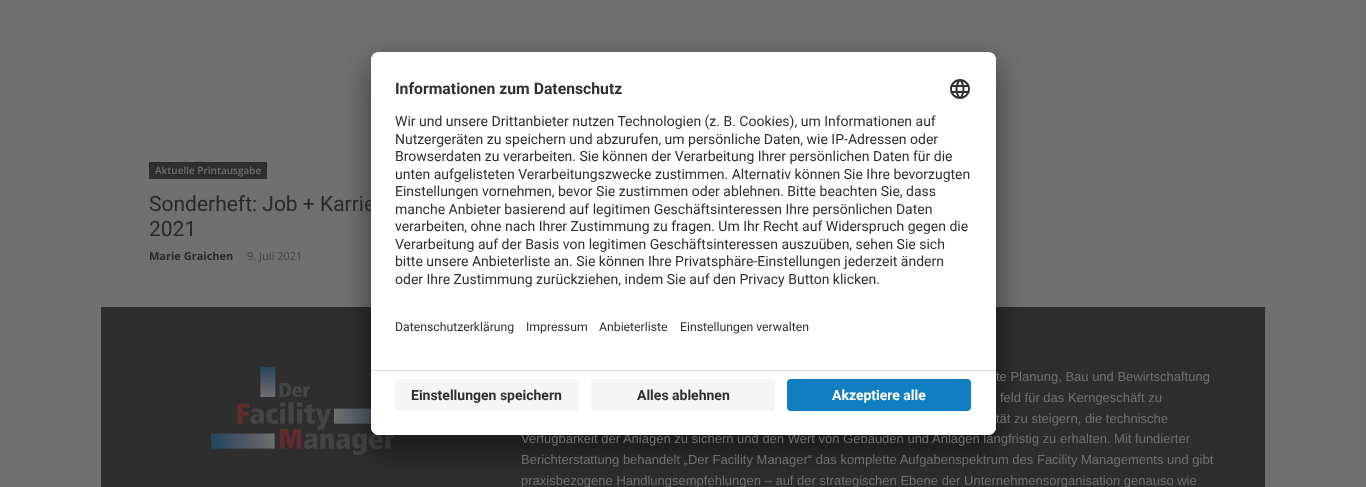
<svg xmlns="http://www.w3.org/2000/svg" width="1366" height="487">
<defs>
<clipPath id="clip1"><rect x="371" y="52" width="625" height="383" rx="8"/></clipPath>
<clipPath id="clip2"><path d="M379 52h609c4.5 0 8 3.5 8 8v310h-625v-310c0-4.5 3.5-8 8-8z"/></clipPath>
</defs>
<rect width="100%" height="100%" fill="#707070"/>
<rect x="101" y="307" width="1164" height="180" fill="#2e2e2e"/>
<image x="211" y="367" width="184" height="88" href="media/2.png"/>
<rect x="371" y="72" width="625" height="383" rx="8" fill="#0000004d" filter="blur(14px)"/>
<rect x="371" y="57" width="625" height="383" rx="8" fill="#00000038" filter="blur(13px)"/>
<text x="149" y="211" style="font-family:Roboto;font-size:21px;fill:#292929">Sonderheft: Job + Karrie</text>
<text x="996" y="381" style="font-family:Liberation Sans;font-size:13px;fill:#707070">te Planung, Bau und Bewirtschaftung</text>
<text x="521" y="443" style="font-family:Liberation Sans;font-size:13px;fill:#707070">Verfügbarkeit der Anlagen zu sichern und den Wert von Gebäuden und Anlagen langfristig zu erhalten. Mit fundierter</text>
<rect x="371" y="52" width="625" height="383" rx="8" fill="#fff"/>
<g clip-path="url(#clip1)">
<g clip-path="url(#clip2)">
<rect x="371" y="53" width="625" height="317" fill="#fff"/>
<rect x="371" y="53" width="625" height="297" fill="#fff"/>
</g>
</g>
<text x="395" y="94" style="font-family:Roboto;font-size:15.75px;font-weight:bold;fill:#303030">Informationen zum Datenschutz</text>
<image x="950" y="79" width="20" height="20" href="media/1.png"/>
<text x="395" y="126" style="font-family:Roboto;font-size:14px;fill:#303030">Wir und unsere Drittanbieter nutzen Technologien (z. B. Cookies), um Informationen auf</text>
<text x="395" y="144" style="font-family:Roboto;font-size:14px;fill:#303030">Nutzergeräten zu speichern und abzurufen, um persönliche Daten, wie IP-Adressen oder</text>
<text x="395" y="161" style="font-family:Roboto;font-size:14px;fill:#303030">Browserdaten zu verarbeiten. Sie können der Verarbeitung Ihrer persönlichen Daten für die</text>
<text x="395" y="179" style="font-family:Roboto;font-size:14px;fill:#303030">unten aufgelisteten Verarbeitungszwecke zustimmen. Alternativ können Sie Ihre bevorzugten</text>
<text x="395" y="196" style="font-family:Roboto;font-size:14px;fill:#303030">Einstellungen vornehmen, bevor Sie zustimmen oder ablehnen. Bitte beachten Sie, dass</text>
<text x="395" y="214" style="font-family:Roboto;font-size:14px;fill:#303030">manche Anbieter basierend auf legitimen Geschäftsinteressen Ihre persönlichen Daten</text>
<text x="395" y="231" style="font-family:Roboto;font-size:14px;fill:#303030">verarbeiten, ohne nach Ihrer Zustimmung zu fragen. Um Ihr Recht auf Widerspruch gegen die</text>
<text x="395" y="249" style="font-family:Roboto;font-size:14px;fill:#303030">Verarbeitung auf der Basis von legitimen Geschäftsinteressen auszuüben, sehen Sie sich</text>
<text x="395" y="266" style="font-family:Roboto;font-size:14px;fill:#303030">bitte unsere Anbieterliste an. Sie können Ihre Privatsphäre-Einstellungen jederzeit ändern</text>
<text x="395" y="284" style="font-family:Roboto;font-size:14px;fill:#303030">oder Ihre Zustimmung zurückziehen, indem Sie auf den Privacy Button klicken.</text>
<text x="395" y="331" style="font-family:Roboto;font-size:12.25px;fill:#303030">Datenschutzerklärung</text>
<text x="526" y="331" style="font-family:Roboto;font-size:12.25px;fill:#303030">Impressum</text>
<text x="599" y="331" style="font-family:Roboto;font-size:12.25px;fill:#303030">Anbieterliste</text>
<text x="680" y="331" style="font-family:Roboto;font-size:12.25px;fill:#303030">Einstellungen verwalten</text>
<path d="M371 370h625v57c0 4.5-3.5 8-8 8h-609c-4.5 0-8-3.5-8-8z" fill="#fff"/>
<rect x="371" y="370" width="625" height="1" fill="#ddd"/>
<rect x="395" y="379" width="184" height="32" rx="4" fill="#f5f5f5"/>
<text x="411" y="400" style="font-family:Roboto;font-size:14px;font-weight:bold;fill:#303030">Einstellungen speichern</text>
<rect x="591" y="379" width="184" height="32" rx="4" fill="#f5f5f5"/>
<text x="637" y="400" style="font-family:Roboto;font-size:14px;font-weight:bold;fill:#303030">Alles ablehnen</text>
<rect x="787" y="379" width="184" height="32" rx="4" fill="#127ec2"/>
<text x="832" y="400" style="font-family:Roboto;font-size:14px;font-weight:bold;fill:#fff">Akzeptiere alle</text>
<rect x="149" y="162" width="118" height="17" fill="#2e2e2e"/>
<text x="155" y="174" style="font-family:Open Sans;font-size:10px;font-weight:600;fill:#707070">Aktuelle Printausgabe</text>
<text x="149" y="236" style="font-family:Roboto;font-size:21px;fill:#292929">2021</text>
<text x="149" y="260" style="font-family:Open Sans;font-size:11px;font-weight:bold;fill:#292929">Marie Graichen</text>
<text x="247" y="260" style="font-family:Open Sans;font-size:11px;fill:#474747">9. Juli 2021</text>
<text x="1000" y="402" style="font-family:Liberation Sans;font-size:13px;fill:#707070">feld für das Kerngeschäft zu</text>
<text x="996" y="423" style="font-family:Liberation Sans;font-size:13px;fill:#707070">tät zu steigern, die technische</text>
<text x="521" y="464" style="font-family:Liberation Sans;font-size:13px;fill:#707070">Berichterstattung behandelt „Der Facility Manager“ das komplette Aufgabenspektrum des Facility Managements und gibt</text>
<text x="521" y="485" style="font-family:Liberation Sans;font-size:13px;fill:#707070">praxisbezogene Handlungsempfehlungen – auf der strategischen Ebene der Unternehmensorganisation genauso wie</text>
</svg>
